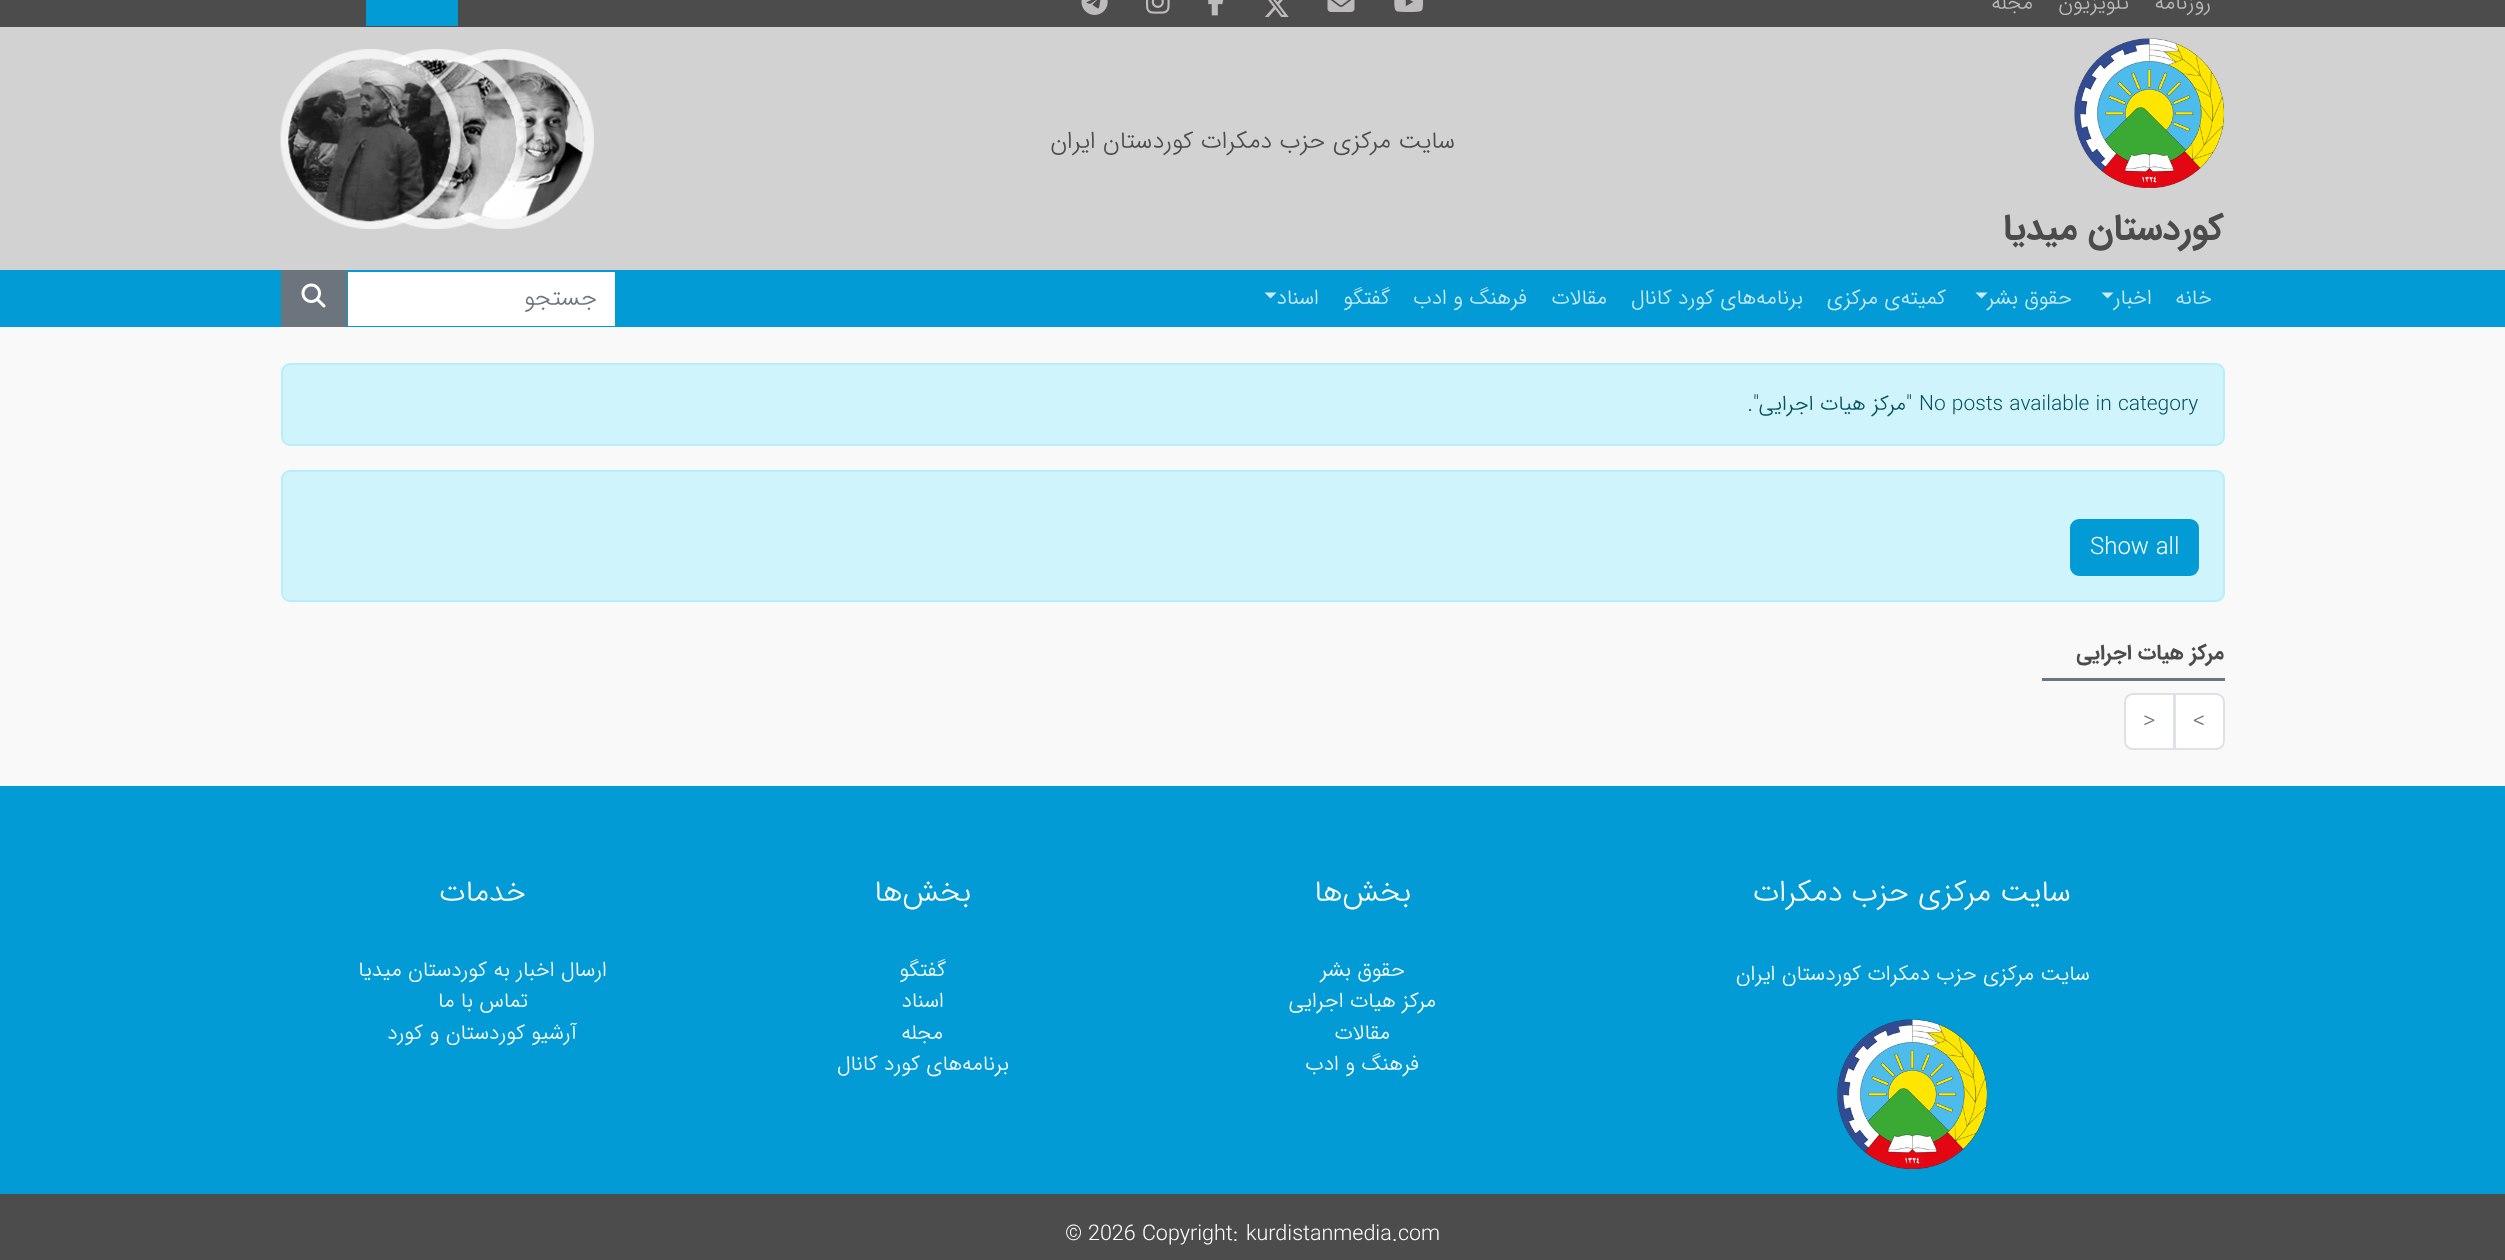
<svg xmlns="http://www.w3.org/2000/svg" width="2505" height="1260">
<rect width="100%" height="100%" fill="#f9f9f9"/>
<rect width="2505" height="27" fill="#4d4c4c"/>
<text x="2211" y="9" style="font-family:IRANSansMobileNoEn;font-size:21px;font-weight:300;direction:rtl;fill:#bdbbbb">روزنامە</text>
<text x="2129" y="9" style="font-family:IRANSansMobileNoEn;font-size:21px;font-weight:300;direction:rtl;fill:#bdbbbb">تلویزیون</text>
<text x="2033" y="9" style="font-family:IRANSansMobileNoEn;font-size:21px;font-weight:300;direction:rtl;fill:#bdbbbb">مجلە</text>
<image x="1394" y="0" width="30" height="12" href="media/1.png"/>
<image x="1327" y="0" width="28" height="12" href="media/2.png"/>
<image x="1265" y="0" width="24" height="17" href="media/3.png"/>
<image x="1208" y="0" width="16" height="16" href="media/4.png"/>
<image x="1146" y="0" width="24" height="14" href="media/5.png"/>
<image x="1081" y="0" width="27" height="15" href="media/6.png"/>
<rect x="366" width="92" height="26" fill="#039bd5"/>
<rect y="27" width="2505" height="243" fill="#d2d2d2"/>
<text x="1455" y="148" style="font-family:IRANSansMobileNoEn;font-size:24px;font-weight:300;direction:rtl;fill:#4b4b4b">سایت مرکزی حزب دمکرات کوردستان ایران</text>
<image x="456" y="49" width="138" height="180" href="media/9.png"/>
<image x="389" y="49" width="138" height="180" href="media/8.png"/>
<image x="280" y="49" width="181" height="180" href="media/7.png"/>
<image x="2074" y="38" width="150" height="150" href="media/10.png"/>
<text x="2224" y="239" style="font-family:IRANSansMobileNoEn;font-size:36px;font-weight:bold;direction:rtl;fill:#4b4b4b">کوردستان میدیا</text>
<rect y="270" width="2505" height="57" fill="#039bd5"/>
<text x="2212" y="304" style="font-family:IRANSansMobileNoEn;font-size:21px;font-weight:300;direction:rtl;fill:#cdebf7">خانە</text>
<text x="2152" y="304" style="font-family:IRANSansMobileNoEn;font-size:21px;font-weight:300;direction:rtl;fill:#cdebf7">اخبار</text>
<path d="M2101.5 292.5h12l-6 6z" fill="#cdebf7"/>
<text x="2072" y="304" style="font-family:IRANSansMobileNoEn;font-size:21px;font-weight:300;direction:rtl;fill:#cdebf7">حقوق بشر</text>
<path d="M1975.5 292.5h12l-6 6z" fill="#cdebf7"/>
<text x="1946" y="304" style="font-family:IRANSansMobileNoEn;font-size:21px;font-weight:300;direction:rtl;fill:#cdebf7">کمیتەی مرکزی</text>
<text x="1803" y="304" style="font-family:IRANSansMobileNoEn;font-size:21px;font-weight:300;direction:rtl;fill:#cdebf7">برنامەهای کورد کانال</text>
<text x="1607" y="304" style="font-family:IRANSansMobileNoEn;font-size:21px;font-weight:300;direction:rtl;fill:#cdebf7">مقالات</text>
<text x="1527" y="304" style="font-family:IRANSansMobileNoEn;font-size:21px;font-weight:300;direction:rtl;fill:#cdebf7">فرهنگ و ادب</text>
<text x="1390" y="304" style="font-family:IRANSansMobileNoEn;font-size:21px;font-weight:300;direction:rtl;fill:#cdebf7">گفتگو</text>
<text x="1319" y="304" style="font-family:IRANSansMobileNoEn;font-size:21px;font-weight:300;direction:rtl;fill:#cdebf7">اسناد</text>
<path d="M1264.5 292.5h12l-6 6z" fill="#cdebf7"/>
<rect x="348" y="272" width="267" height="54" fill="#fff"/>
<text x="597" y="305" style="font-family:IRANSansMobileNoEn;font-size:24px;font-weight:300;direction:rtl;fill:#6c757d">جستجو</text>
<rect x="281" y="270" width="66" height="57" fill="#6c757d"/>
<image x="301" y="283" width="25" height="25" href="media/11.png"/>
<rect x="282" y="364" width="1942" height="81" rx="8" fill="#cff4fc" stroke="#b6effb" stroke-width="2"/>
<text x="1919" y="410" word-spacing="1" style="font-family:Roboto;font-size:21px;font-weight:300;fill:#055160">No posts available in category</text>
<text x="1912" y="410" style="font-family:Roboto;font-size:21px;font-weight:300;direction:rtl;fill:#055160">"</text>
<text x="1906" y="410" style="font-family:IRANSansMobileNoEn;font-size:21px;font-weight:300;direction:rtl;fill:#055160">مرکز هیات اجرایی</text>
<text x="1759" y="410" style="font-family:Roboto;font-size:21px;font-weight:300;direction:rtl;fill:#055160">"</text>
<text x="1753" y="410" style="font-family:IRANSansMobileNoEn;font-size:21px;font-weight:300;direction:rtl;fill:#055160">.</text>
<rect x="282" y="471" width="1942" height="130" rx="8" fill="#cff4fc" stroke="#b6effb" stroke-width="2"/>
<rect x="2071" y="520" width="127" height="55" rx="8" fill="#039bd5" stroke="#039bd5" stroke-width="2"/>
<text x="2090" y="554" word-spacing="1" style="font-family:Roboto;font-size:24px;font-weight:300;fill:#fff">Show all</text>
<text x="2224" y="659" style="font-family:IRANSansMobileNoEn;font-size:21px;font-weight:bold;direction:rtl;fill:#4b4b4b">مرکز هیات اجرایی</text>
<rect x="2042" y="678" width="183" height="3" fill="#6c757d"/>
<path d="M2175 694h41c4.5 0 8 3.5 8 8v39c0 4.5-3.5 8-8 8h-41z" fill="#fff" stroke="#dee2e6" stroke-width="2"/>
<text x="2193" y="728" style="font-family:Roboto;font-size:24px;font-weight:300;fill:#6c757d">&lt;</text>
<path d="M2133 694h41v55h-41c-4.5 0-8-3.5-8-8v-39c0-4.5 3.5-8 8-8z" fill="#fff" stroke="#dee2e6" stroke-width="2"/>
<text x="2143" y="728" style="font-family:Roboto;font-size:24px;font-weight:300;fill:#6c757d">&gt;</text>
<rect y="786" width="2505" height="408" fill="#039bd5"/>
<text x="2071" y="901" style="font-family:IRANSansMobileNoEn;font-size:30px;font-weight:300;direction:rtl;fill:#fff">سایت مرکزی حزب دمکرات</text>
<text x="2090" y="980" style="font-family:IRANSansMobileNoEn;font-size:21px;font-weight:300;direction:rtl;fill:#fff">سایت مرکزی حزب دمکرات کوردستان ایران</text>
<image x="1837" y="1019" width="150" height="150" href="media/12.png"/>
<text x="1411" y="901" style="font-family:IRANSansMobileNoEn;font-size:30px;font-weight:300;direction:rtl;fill:#fff">بخش‌ها</text>
<text x="1405" y="976" style="font-family:IRANSansMobileNoEn;font-size:21px;font-weight:300;direction:rtl;fill:#fff">حقوق بشر</text>
<text x="1436" y="1007" style="font-family:IRANSansMobileNoEn;font-size:21px;font-weight:300;direction:rtl;fill:#fff">مرکز هیات اجرایی</text>
<text x="1390" y="1039" style="font-family:IRANSansMobileNoEn;font-size:21px;font-weight:300;direction:rtl;fill:#fff">مقالات</text>
<text x="1419" y="1070" style="font-family:IRANSansMobileNoEn;font-size:21px;font-weight:300;direction:rtl;fill:#fff">فرهنگ و ادب</text>
<text x="971" y="901" style="font-family:IRANSansMobileNoEn;font-size:30px;font-weight:300;direction:rtl;fill:#fff">بخش‌ها</text>
<text x="946" y="976" style="font-family:IRANSansMobileNoEn;font-size:21px;font-weight:300;direction:rtl;fill:#fff">گفتگو</text>
<text x="944" y="1007" style="font-family:IRANSansMobileNoEn;font-size:21px;font-weight:300;direction:rtl;fill:#fff">اسناد</text>
<text x="943" y="1039" style="font-family:IRANSansMobileNoEn;font-size:21px;font-weight:300;direction:rtl;fill:#fff">مجلە</text>
<text x="1009" y="1070" style="font-family:IRANSansMobileNoEn;font-size:21px;font-weight:300;direction:rtl;fill:#fff">برنامەهای کورد کانال</text>
<text x="526" y="901" style="font-family:IRANSansMobileNoEn;font-size:30px;font-weight:300;direction:rtl;fill:#fff">خدمات</text>
<text x="607" y="976" style="font-family:IRANSansMobileNoEn;font-size:21px;font-weight:300;direction:rtl;fill:#fff">ارسال اخبار بە کوردستان میدیا</text>
<text x="528" y="1007" style="font-family:IRANSansMobileNoEn;font-size:21px;font-weight:300;direction:rtl;fill:#fff">تماس با ما</text>
<text x="577" y="1039" style="font-family:IRANSansMobileNoEn;font-size:21px;font-weight:300;direction:rtl;fill:#fff">آرشیو کوردستان و کورد</text>
<rect y="1194" width="2505" height="66" fill="#4d4c4c"/>
<text x="1398" y="1240" style="font-family:Roboto;font-size:21.5px;font-weight:300;fill:#fff">com</text>
<text x="1392" y="1240" style="font-family:IRANSansMobileNoEn;font-size:21.5px;font-weight:300;fill:#fff">.</text>
<text x="1246" y="1240" style="font-family:Roboto;font-size:21.5px;font-weight:300;fill:#fff">kurdistanmedia</text>
<text x="1233" y="1240" style="font-family:IRANSansMobileNoEn;font-size:21.5px;font-weight:300;fill:#fff">:</text>
<text x="1088" y="1240" word-spacing="1" style="font-family:Roboto;font-size:21.5px;font-weight:300;fill:#fff">2026 Copyright</text>
<text x="1065" y="1240" style="font-family:Roboto;font-size:21.5px;font-weight:300;fill:#fff">©</text>
</svg>
